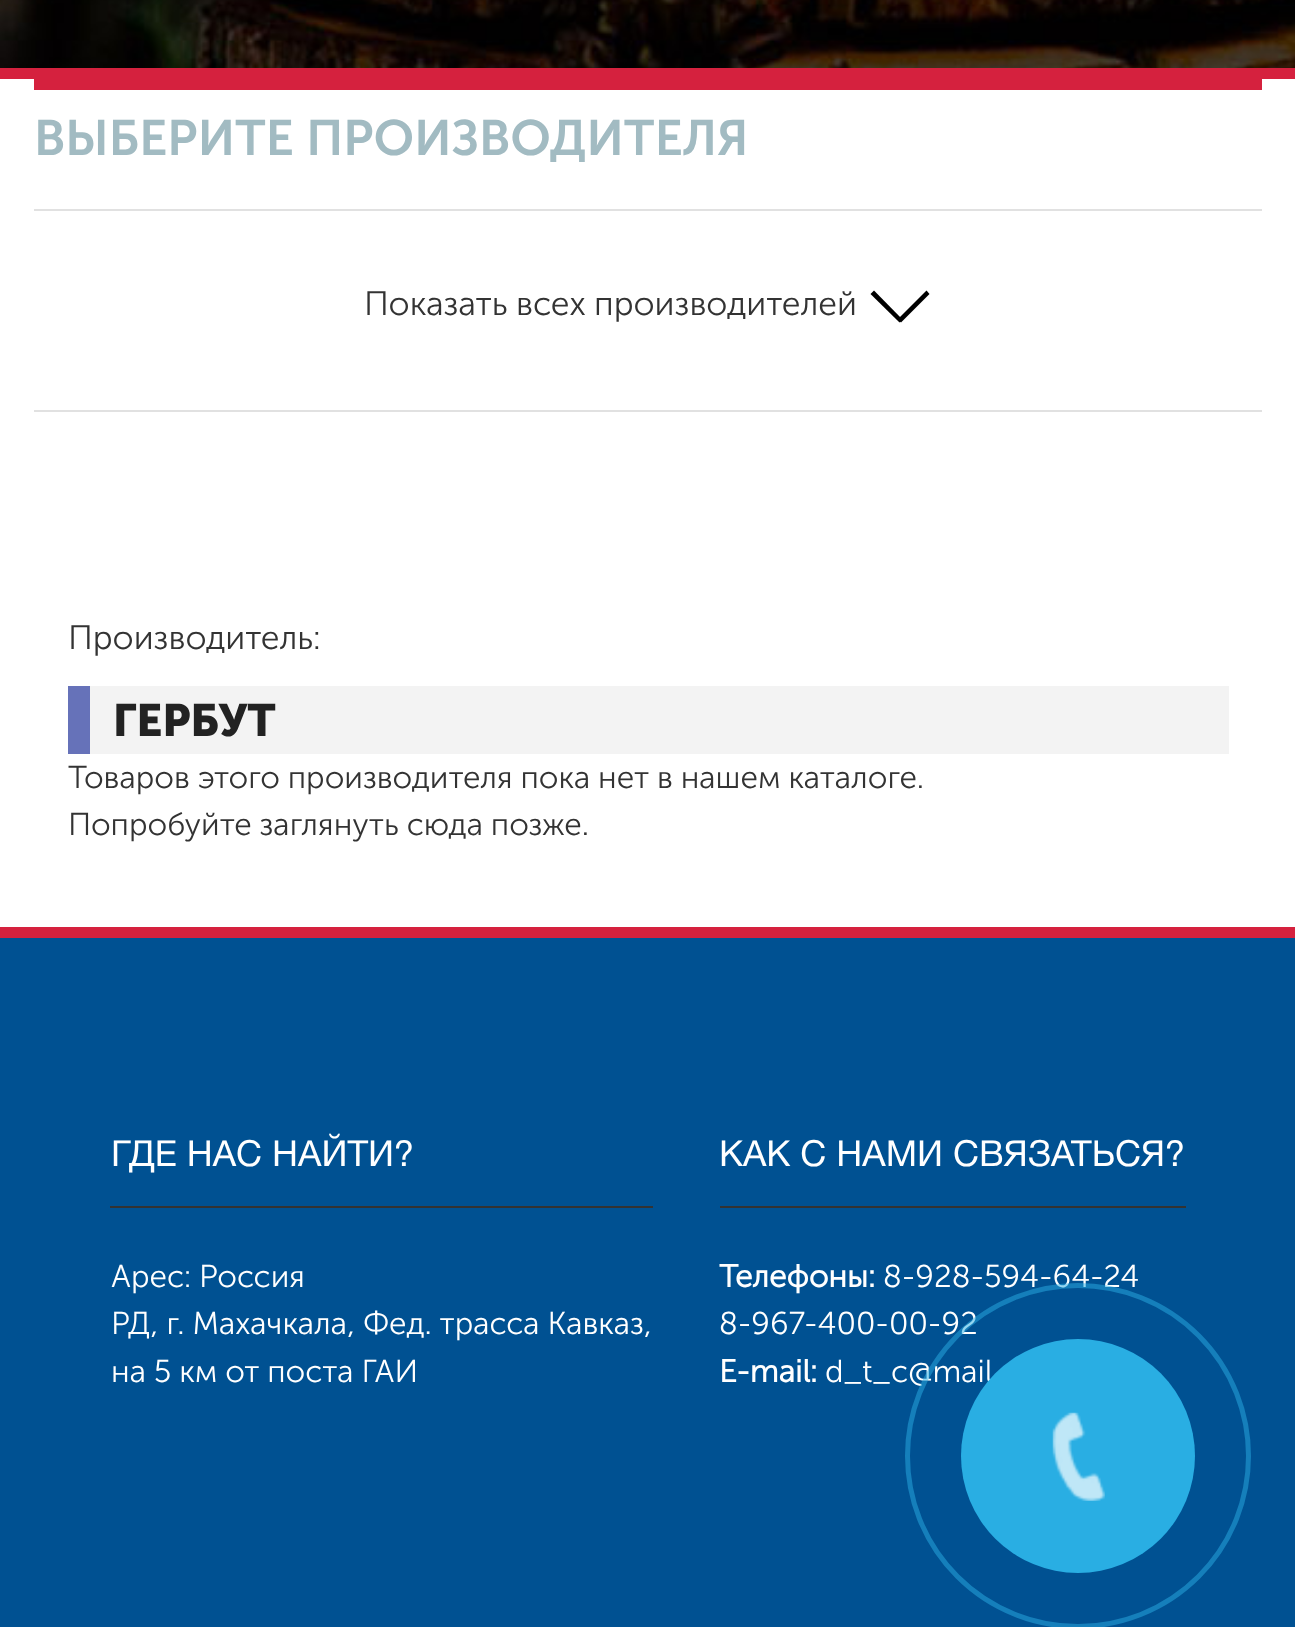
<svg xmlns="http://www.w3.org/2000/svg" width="1295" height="1627">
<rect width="100%" height="100%" fill="#005192"/>
<image x="0" y="0" width="1295" height="68" href="media/1.png"/>
<rect y="79" width="1295" height="848" fill="#fff"/>
<rect y="68" width="1295" height="11" fill="#d5213e"/>
<rect y="927" width="1295" height="11" fill="#d5213e"/>
<rect x="34" y="79" width="1228" height="11" fill="#d5213e"/>
<text x="34" y="155" style="font-family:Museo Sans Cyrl;font-size:49.5px;font-weight:600;fill:#a2bbc2">ВЫБЕРИТЕ ПРОИЗВОДИТЕЛЯ</text>
<rect x="34" y="209" width="1228" height="2" fill="#e1e1e1"/>
<rect x="34" y="410" width="1228" height="2" fill="#e1e1e1"/>
<text x="364" y="315" style="font-family:Museo Sans Cyrl;font-size:33.75px;font-weight:300;fill:#333">Показать всех производителей</text>
<path d="M870.5 294l3.5-3.5l28.5 29l-3 3z" fill="#000"/>
<path d="M926.5 290.5l3 3.5l-28.5 28.5l-3.5-3z" fill="#000"/>
<text x="68" y="649" style="font-family:Museo Sans Cyrl;font-size:33.75px;font-weight:300;fill:#333">Производитель:</text>
<rect x="90" y="686" width="1139" height="68" fill="#f3f3f3"/>
<rect x="68" y="686" width="22" height="68" fill="#6672b9"/>
<text x="113" y="736" style="font-family:'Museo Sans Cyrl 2';font-size:45px;font-weight:bold;fill:#222">ГЕРБУТ</text>
<text x="68" y="788" style="font-family:Museo Sans Cyrl;font-size:31.5px;font-weight:300;fill:#333">Товаров этого производителя пока нет в нашем каталоге.</text>
<text x="68" y="835" style="font-family:Museo Sans Cyrl;font-size:31.5px;font-weight:300;fill:#333">Попробуйте заглянуть сюда позже.</text>
<rect x="110" y="1206" width="543" height="2" fill="#333"/>
<text x="111" y="1166" style="font-family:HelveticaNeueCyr;font-size:36px;fill:#fff">ГДЕ НАС НАЙТИ?</text>
<text x="111" y="1287" style="font-family:Museo Sans Cyrl;font-size:31.5px;font-weight:300;fill:#fff">Арес: Россия</text>
<text x="111" y="1334" style="font-family:Museo Sans Cyrl;font-size:31.5px;font-weight:300;fill:#fff">РД, г. Махачкала, Фед. трасса Кавказ,</text>
<text x="111" y="1382" style="font-family:Museo Sans Cyrl;font-size:31.5px;font-weight:300;fill:#fff">на 5 км от поста ГАИ</text>
<rect x="720" y="1206" width="466" height="2" fill="#333"/>
<text x="719" y="1166" style="font-family:HelveticaNeueCyr;font-size:36px;fill:#fff">КАК С НАМИ СВЯЗАТЬСЯ?</text>
<text x="719" y="1287" style="font-family:Museo Sans Cyrl;font-size:31.5px;font-weight:bold;fill:#fff">Телефоны:</text>
<text x="883" y="1287" style="font-family:Museo Sans Cyrl;font-size:31.5px;font-weight:300;fill:#fff">8-928-594-64-24</text>
<text x="719" y="1334" style="font-family:Museo Sans Cyrl;font-size:31.5px;font-weight:300;fill:#fff">8-967-400-00-92</text>
<text x="719" y="1382" style="font-family:Museo Sans Cyrl;font-size:31.5px;font-weight:bold;fill:#fff">E-mail:</text>
<text x="825" y="1382" style="font-family:Museo Sans Cyrl;font-size:31.5px;font-weight:300;fill:#fff">d_t_c@mail</text>
<circle cx="1078" cy="1456" r="170.5" fill="none" stroke="#29aee380" stroke-width="5"/>
<circle cx="1078" cy="1456" r="117" fill="#29aee3"/>
<image x="1052" y="1412" width="53" height="89" href="media/2.png"/>
</svg>
